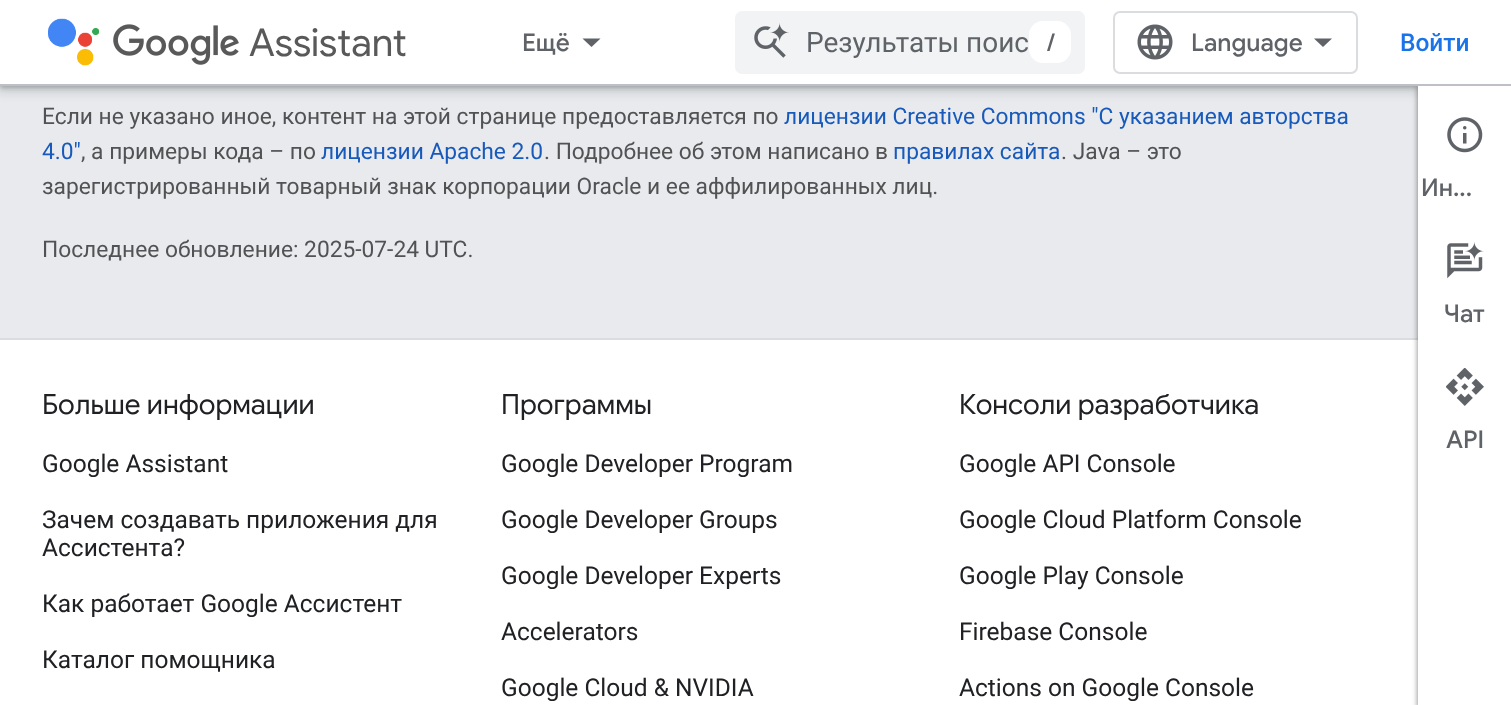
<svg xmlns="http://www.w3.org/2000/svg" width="1511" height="705">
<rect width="100%" height="100%" fill="#e8eaed"/>
<rect x="-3" y="-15" width="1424" height="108" fill="#3c404326" filter="blur(5px)"/>
<rect y="-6" width="1418" height="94" fill="#3c40434d" filter="blur(2px)"/>
<rect y="338" width="1418" height="2" fill="#dadce0"/>
<rect y="340" width="1418" height="365" fill="#fff"/>
<rect x="1416" y="84" width="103" height="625" fill="#00000026" filter="blur(2.5px)"/>
<rect x="1418" y="86" width="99" height="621" fill="#0000004d" filter="blur(2px)"/>
<rect width="1511" height="84" fill="#fff"/>
<rect y="84" width="1511" height="2" fill="#bdc1c6"/>
<image x="48" y="18" width="51" height="48" href="media/1.png"/>
<image x="113" y="24" width="126" height="41" href="media/2.png"/>
<text x="249" y="56" style="font-family:Google Sans;font-size:38.5px;fill:#595959">Assistant</text>
<text x="522" y="51" style="font-family:Google Sans;font-size:24.5px;font-weight:500;fill:#5f6368">Ещё</text>
<path d="M582.5 38.5h18l-9 8.5z" fill="#5f6368"/>
<rect x="735" y="11" width="350" height="63" rx="7" fill="#f1f3f4"/>
<image x="754" y="23" width="35" height="35" href="media/3.png"/>
<text x="806" y="52" style="font-family:Roboto;font-size:28px;fill:#5f6368">Результаты поис</text>
<rect x="1029" y="21" width="42" height="42" rx="14" fill="#fff"/>
<text x="1047" y="51" style="font-family:Google Sans;font-size:24.5px;font-weight:500;fill:#5f6368">/</text>
<rect x="1114" y="12" width="243" height="61" rx="6" fill="none" stroke="#dadce0" stroke-width="2"/>
<image x="1137" y="24" width="36" height="36" href="media/4.png"/>
<text x="1191" y="51" style="font-family:Google Sans;font-size:24.5px;font-weight:500;fill:#5f6368">Language</text>
<path d="M1323 47l-9-8.5h18z" fill="#5f6368"/>
<text x="1400" y="51" style="font-family:Roboto;font-size:24.5px;font-weight:500;fill:#1a73e8">Войти</text>
<text x="42" y="124" style="font-family:Roboto;font-size:22.75px;fill:#515253">Если не указано иное, контент на этой странице предоставляется по</text>
<text x="784" y="124" style="font-family:Roboto;font-size:22.75px;fill:#185abc">лицензии Creative Commons "С указанием авторства</text>
<text x="42" y="159" style="font-family:Roboto;font-size:22.75px;fill:#185abc">4.0"</text>
<text x="81" y="159" style="font-family:Roboto;font-size:22.75px;fill:#515253">, а примеры кода – по</text>
<text x="321" y="159" style="font-family:Roboto;font-size:22.75px;fill:#185abc">лицензии Apache 2.0</text>
<text x="544" y="159" style="font-family:Roboto;font-size:22.75px;fill:#515253">. Подробнее об этом написано в</text>
<text x="893" y="159" style="font-family:Roboto;font-size:22.75px;fill:#185abc">правилах сайта</text>
<text x="1061" y="159" style="font-family:Roboto;font-size:22.75px;fill:#515253">. Java – это</text>
<text x="42" y="194" style="font-family:Roboto;font-size:22.75px;fill:#515253">зарегистрированный товарный знак корпорации Oracle и ее аффилированных лиц.</text>
<text x="42" y="257" style="font-family:Roboto;font-size:22.75px;fill:#515253">Последнее обновление: 2025-07-24 UTC.</text>
<rect x="1418" y="86" width="93" height="619" fill="#fff"/>
<image x="1447" y="117" width="36" height="36" href="media/5.png"/>
<text x="1421" y="196" style="font-family:Google Sans;font-size:24.5px;font-weight:500;fill:#5f6368">Ин...</text>
<image x="1447" y="242" width="37" height="37" href="media/6.png"/>
<text x="1444" y="322" style="font-family:Google Sans;font-size:24.5px;font-weight:500;fill:#5f6368">Чат</text>
<image x="1446" y="368" width="38" height="38" href="media/7.png"/>
<text x="1446" y="448" style="font-family:Google Sans;font-size:24.5px;font-weight:500;fill:#5f6368">API</text>
<text x="42" y="414" style="font-family:Google Sans;font-size:28px;fill:#202124">Больше информации</text>
<text x="42" y="472" style="font-family:Roboto;font-size:24.5px;fill:#202124">Google Assistant</text>
<text x="42" y="528" style="font-family:Roboto;font-size:24.5px;fill:#202124">Зачем создавать приложения для</text>
<text x="42" y="556" style="font-family:Roboto;font-size:24.5px;fill:#202124">Ассистента?</text>
<text x="42" y="612" style="font-family:Roboto;font-size:24.5px;fill:#202124">Как работает Google Ассистент</text>
<text x="42" y="668" style="font-family:Roboto;font-size:24.5px;fill:#202124">Каталог помощника</text>
<text x="501" y="414" style="font-family:Google Sans;font-size:28px;fill:#202124">Программы</text>
<text x="501" y="472" style="font-family:Roboto;font-size:24.5px;fill:#202124">Google Developer Program</text>
<text x="501" y="528" style="font-family:Roboto;font-size:24.5px;fill:#202124">Google Developer Groups</text>
<text x="501" y="584" style="font-family:Roboto;font-size:24.5px;fill:#202124">Google Developer Experts</text>
<text x="501" y="640" style="font-family:Roboto;font-size:24.5px;fill:#202124">Accelerators</text>
<text x="501" y="696" style="font-family:Roboto;font-size:24.5px;fill:#202124">Google Cloud &amp; NVIDIA</text>
<text x="959" y="414" style="font-family:Google Sans;font-size:28px;fill:#202124">Консоли разработчика</text>
<text x="959" y="472" style="font-family:Roboto;font-size:24.5px;fill:#202124">Google API Console</text>
<text x="959" y="528" style="font-family:Roboto;font-size:24.5px;fill:#202124">Google Cloud Platform Console</text>
<text x="959" y="584" style="font-family:Roboto;font-size:24.5px;fill:#202124">Google Play Console</text>
<text x="959" y="640" style="font-family:Roboto;font-size:24.5px;fill:#202124">Firebase Console</text>
<text x="959" y="696" style="font-family:Roboto;font-size:24.5px;fill:#202124">Actions on Google Console</text>
</svg>
